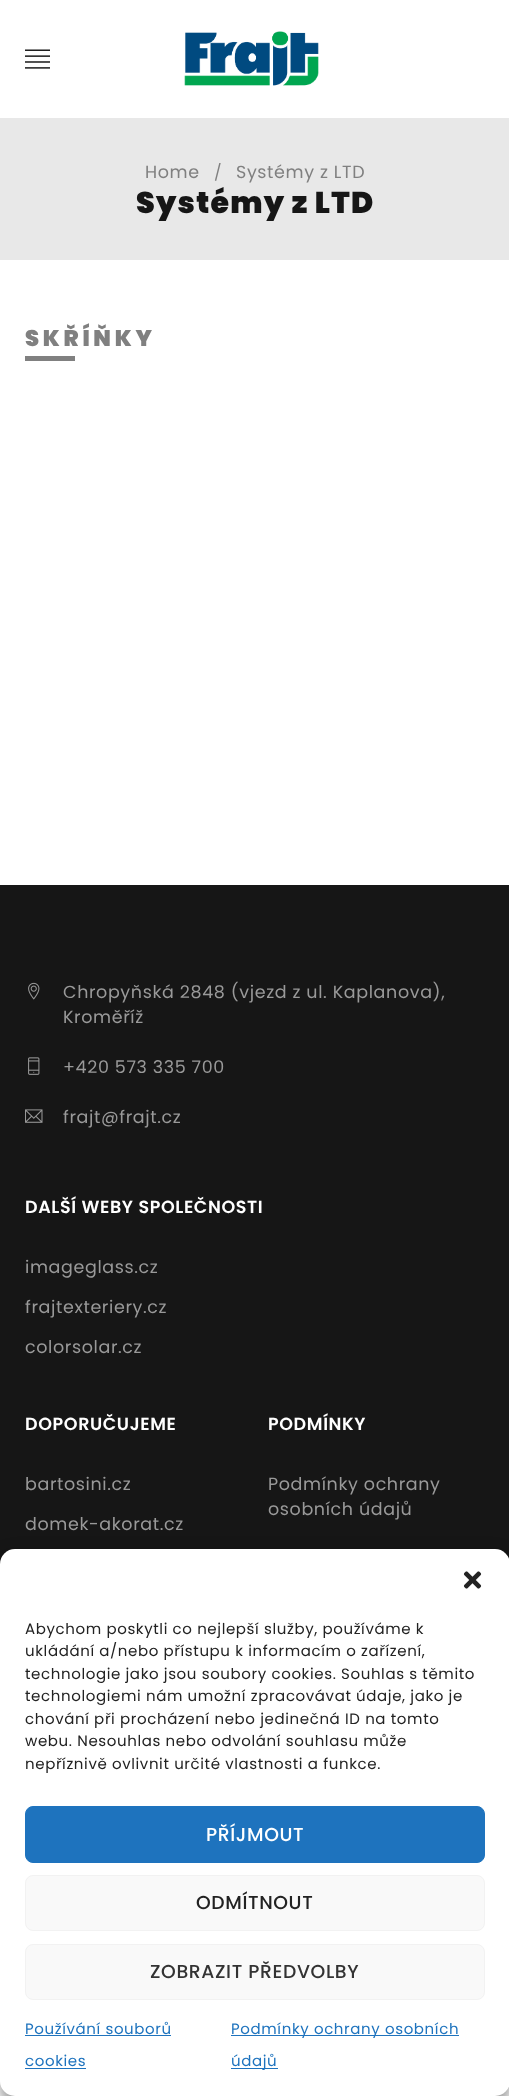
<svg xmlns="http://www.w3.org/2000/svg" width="509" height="2096">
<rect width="100%" height="100%" fill="#fff"/>
<image x="25" y="49" width="25" height="20" href="media/1.png"/>
<image x="184" y="31" width="135" height="55" href="media/2.png"/>
<rect y="118" width="509" height="142" fill="#e8e8e8"/>
<text x="145" y="178" style="font-family:Poppins;font-size:17.5px;letter-spacing:0.62px;fill:#808080">Home</text>
<text x="214" y="178" style="font-family:Poppins;font-size:16px;letter-spacing:0.62px;fill:#808080">/</text>
<text x="236" y="178" style="font-family:Poppins;font-size:17.5px;letter-spacing:0.62px;fill:#808080">Systémy z LTD</text>
<text x="136" y="213" style="font-family:Poppins;font-size:30px;font-weight:900;letter-spacing:1.25px;fill:#161616">Systémy z LTD</text>
<text x="25" y="346" style="font-family:Poppins;font-size:22.5px;font-weight:900;letter-spacing:3.75px;fill:#808080">SKŘÍŇKY</text>
<rect x="25" y="356" width="50" height="5" fill="#808080"/>
<rect y="885" width="509" height="679" fill="#161616"/>
<image x="28" y="982" width="12" height="18" href="media/3.png"/>
<text x="63" y="998" style="font-family:Poppins;font-size:17.5px;letter-spacing:0.62px;fill:#999">Chropyňská 2848 (vjezd z ul. Kaplanova),</text>
<text x="63" y="1023" style="font-family:Poppins;font-size:17.5px;letter-spacing:0.62px;fill:#999">Kroměříž</text>
<image x="28" y="1057" width="12" height="18" href="media/4.png"/>
<text x="63" y="1073" style="font-family:Poppins;font-size:17.5px;letter-spacing:0.62px;fill:#999">+420 573 335 700</text>
<image x="25" y="1109" width="18" height="14" href="media/5.png"/>
<text x="63" y="1123" style="font-family:Poppins;font-size:17.5px;letter-spacing:0.62px;fill:#999">frajt@frajt.cz</text>
<text x="25" y="1213" style="font-family:Poppins;font-size:17.5px;font-weight:600;letter-spacing:0.62px;fill:#fff">DALŠÍ WEBY SPOLEČNOSTI</text>
<text x="25" y="1273" style="font-family:Poppins;font-size:17.5px;letter-spacing:0.62px;fill:#999">imageglass.cz</text>
<text x="25" y="1313" style="font-family:Poppins;font-size:17.5px;letter-spacing:0.62px;fill:#999">frajtexteriery.cz</text>
<text x="25" y="1353" style="font-family:Poppins;font-size:17.5px;letter-spacing:0.62px;fill:#999">colorsolar.cz</text>
<text x="25" y="1430" style="font-family:Poppins;font-size:17.5px;font-weight:600;letter-spacing:0.62px;fill:#fff">DOPORUČUJEME</text>
<text x="25" y="1490" style="font-family:Poppins;font-size:17.5px;letter-spacing:0.62px;fill:#999">bartosini.cz</text>
<text x="25" y="1530" style="font-family:Poppins;font-size:17.5px;letter-spacing:0.62px;fill:#999">domek-akorat.cz</text>
<text x="268" y="1430" style="font-family:Poppins;font-size:17.5px;font-weight:600;letter-spacing:0.62px;fill:#fff">PODMÍNKY</text>
<text x="268" y="1490" style="font-family:Poppins;font-size:17.5px;letter-spacing:0.62px;fill:#999">Podmínky ochrany</text>
<text x="268" y="1515" style="font-family:Poppins;font-size:17.5px;letter-spacing:0.62px;fill:#999">osobních údajů</text>
<rect y="1556" width="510" height="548" rx="15" fill="#0000003b" filter="blur(4px)"/>
<rect y="1561" width="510" height="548" rx="15" fill="#00000030" filter="blur(12.5px)"/>
<rect y="1549" width="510" height="547" rx="15" fill="#fff"/>
<image x="463" y="1571" width="19" height="18" href="media/6.png"/>
<text x="25" y="1634" style="font-family:Poppins;font-size:15px;letter-spacing:0.62px;fill:#222">Abychom poskytli co nejlepší služby, používáme k</text>
<text x="25" y="1656" style="font-family:Poppins;font-size:15px;letter-spacing:0.62px;fill:#222">ukládání a/nebo přístupu k informacím o zařízení,</text>
<text x="25" y="1679" style="font-family:Poppins;font-size:15px;letter-spacing:0.62px;fill:#222">technologie jako jsou soubory cookies. Souhlas s těmito</text>
<text x="25" y="1701" style="font-family:Poppins;font-size:15px;letter-spacing:0.62px;fill:#222">technologiemi nám umožní zpracovávat údaje, jako je</text>
<text x="25" y="1724" style="font-family:Poppins;font-size:15px;letter-spacing:0.62px;fill:#222">chování při procházení nebo jedinečná ID na tomto</text>
<text x="25" y="1746" style="font-family:Poppins;font-size:15px;letter-spacing:0.62px;fill:#222">webu. Nesouhlas nebo odvolání souhlasu může</text>
<text x="25" y="1769" style="font-family:Poppins;font-size:15px;letter-spacing:0.62px;fill:#222">nepříznivě ovlivnit určité vlastnosti a funkce.</text>
<rect x="25.5" y="1806.5" width="459" height="56" rx="7.5" fill="#1e73be" stroke="#1e73be"/>
<text x="206" y="1841" style="font-family:Poppins;font-size:18.75px;font-weight:500;letter-spacing:0.62px;fill:#fff">PŘÍJMOUT</text>
<rect x="25.5" y="1875.5" width="459" height="55" rx="7.5" fill="#f9f9f9" stroke="#f2f2f2"/>
<text x="196" y="1909" style="font-family:Poppins;font-size:18.75px;font-weight:500;letter-spacing:0.62px;fill:#222">ODMÍTNOUT</text>
<rect x="25.5" y="1944.5" width="459" height="55" rx="7.5" fill="#f9f9f9" stroke="#f2f2f2"/>
<text x="150" y="1978" style="font-family:Poppins;font-size:18.75px;font-weight:500;letter-spacing:0.62px;fill:#333">ZOBRAZIT PŘEDVOLBY</text>
<text x="25" y="2034" style="font-family:Poppins;font-size:15px;letter-spacing:0.62px;fill:#1e73be">Používání souborů</text>
<rect x="25" y="2035" width="146" height="1" fill="#1e73be"/>
<text x="25" y="2066" style="font-family:Poppins;font-size:15px;letter-spacing:0.62px;fill:#1e73be">cookies</text>
<rect x="25" y="2068" width="61" height="1" fill="#1e73be"/>
<rect x="231" y="2035" width="228" height="1" fill="#1e73be"/>
<text x="231" y="2034" style="font-family:Poppins;font-size:15px;letter-spacing:0.62px;fill:#1e73be">Podmínky ochrany osobních</text>
<rect x="231" y="2068" width="47" height="1" fill="#1e73be"/>
<text x="231" y="2066" style="font-family:Poppins;font-size:15px;letter-spacing:0.62px;fill:#1e73be">údajů</text>
</svg>
